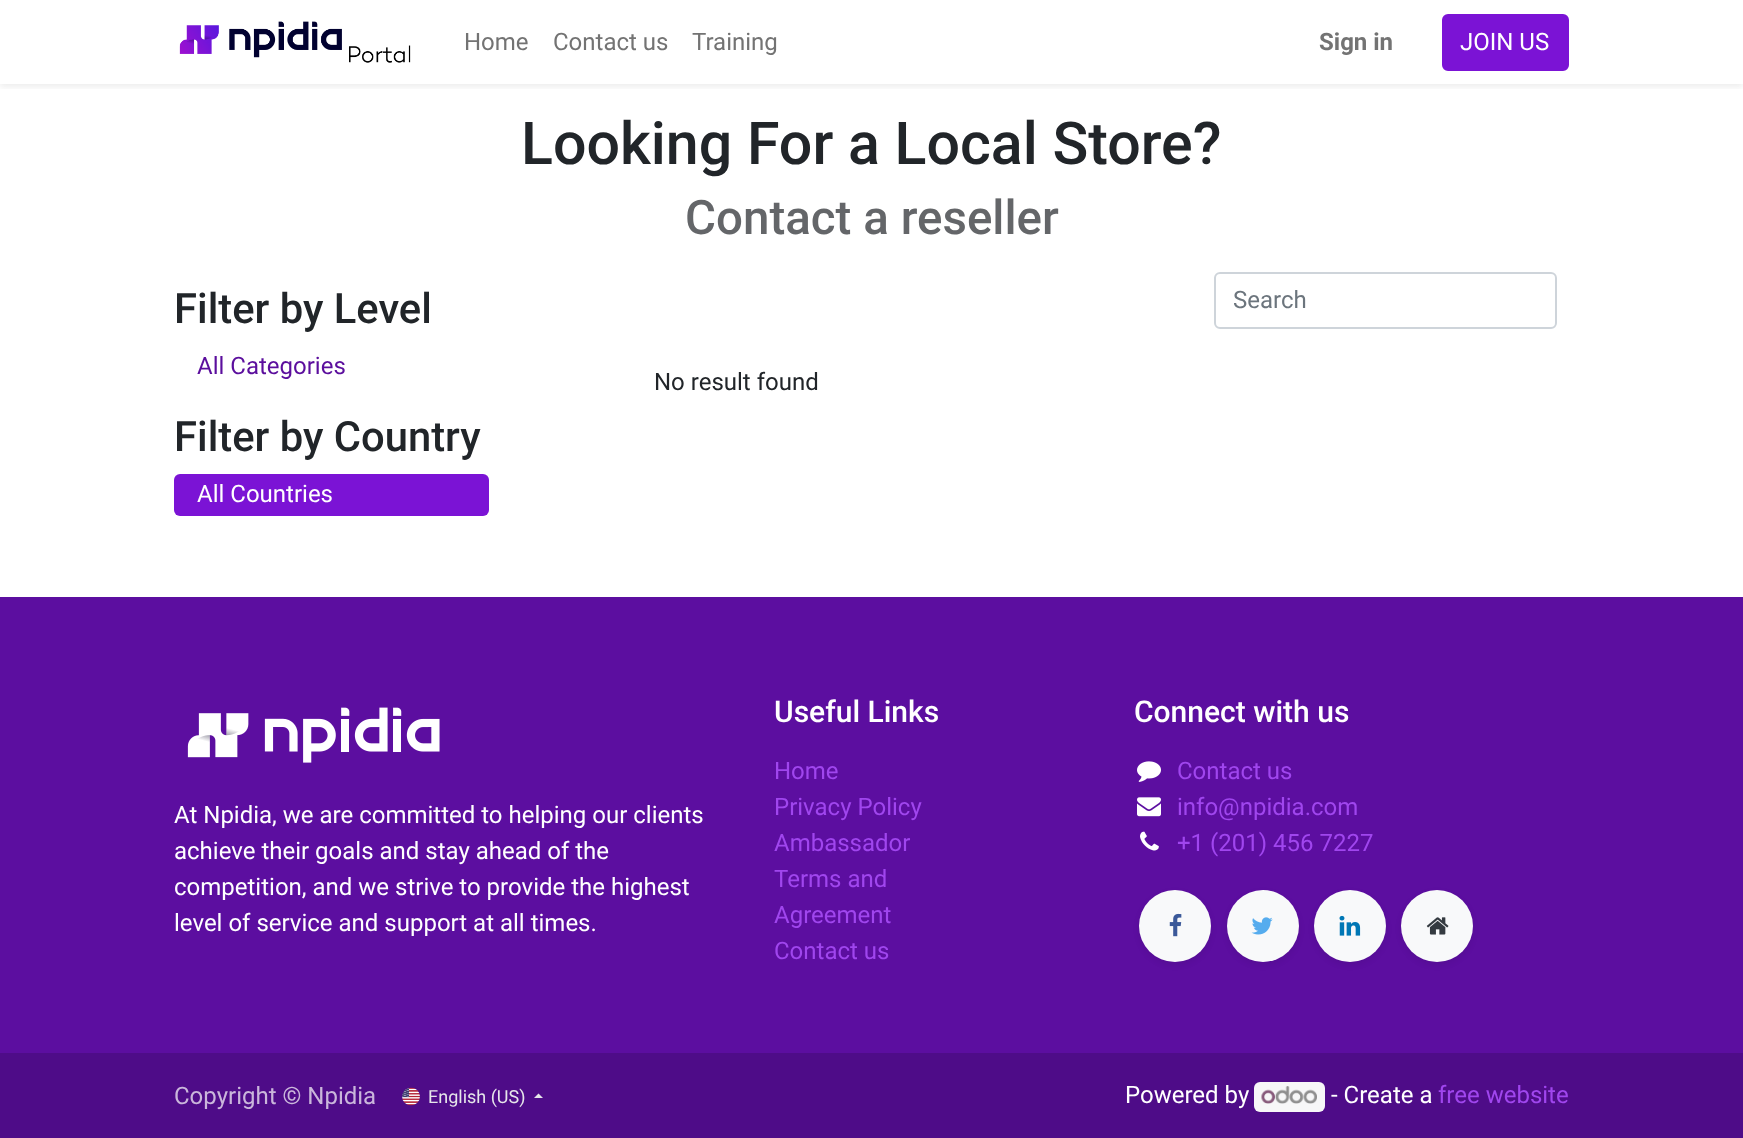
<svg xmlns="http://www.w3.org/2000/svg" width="1743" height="1138">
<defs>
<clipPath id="clip1"><rect x="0" y="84" width="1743" height="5"/></clipPath>
</defs>
<rect width="100%" height="100%" fill="#fff"/>
<g clip-path="url(#clip1)">
<rect y="3" width="1743" height="84" fill="#00000012" filter="blur(3px)"/>
</g>
<image x="179" y="21" width="232" height="42" href="media/1.png"/>
<text x="464" y="50" style="font-family:Roboto;font-size:24px;fill:#737373">Home</text>
<text x="553" y="50" style="font-family:Roboto;font-size:24px;fill:#737373">Contact us</text>
<text x="692" y="50" style="font-family:Roboto;font-size:24px;fill:#737373">Training</text>
<text x="1319" y="50" style="font-family:Roboto;font-size:24px;font-weight:bold;fill:#737373">Sign in</text>
<rect x="1443" y="15" width="125" height="55" rx="5" fill="#7b13d5" stroke="#7b13d5" stroke-width="2"/>
<text x="1460" y="50" style="font-family:Roboto;font-size:24px;fill:#fff">JOIN US</text>
<text x="521" y="164" style="font-family:Roboto;font-size:59.1px;font-weight:500;fill:#212529">Looking For a Local Store?</text>
<text x="685" y="234" style="font-family:Roboto;font-size:47.5px;font-weight:500;fill:#646669">Contact a reseller</text>
<text x="174" y="323" style="font-family:Roboto;font-size:41.75px;font-weight:500;fill:#212529">Filter by Level</text>
<text x="197" y="374" style="font-family:Roboto;font-size:24px;fill:#5b0e9d">All Categories</text>
<text x="174" y="451" style="font-family:Roboto;font-size:41.75px;font-weight:500;fill:#212529">Filter by Country</text>
<rect x="174" y="474" width="315" height="42" rx="6" fill="#7b13d5"/>
<text x="197" y="502" style="font-family:Roboto;font-size:24px;fill:#fff">All Countries</text>
<rect x="1215" y="273" width="341" height="55" rx="5" fill="none" stroke="#ced4da" stroke-width="2"/>
<text x="1233" y="308" style="font-family:Roboto;font-size:24px;fill:#6c757d">Search</text>
<text x="654" y="390" style="font-family:Roboto;font-size:24px;fill:#212529">No result found</text>
<rect y="597" width="1743" height="456" fill="#5c0ea0"/>
<text x="774" y="722" style="font-family:Roboto;font-size:30px;font-weight:500;fill:#fff">Useful Links</text>
<text x="774" y="779" style="font-family:Roboto;font-size:24px;fill:#a046ee">Home</text>
<text x="774" y="815" style="font-family:Roboto;font-size:24px;fill:#a046ee">Privacy Policy</text>
<text x="774" y="851" style="font-family:Roboto;font-size:24px;fill:#a046ee">Ambassador</text>
<text x="774" y="887" style="font-family:Roboto;font-size:24px;fill:#a046ee">Terms and</text>
<text x="774" y="923" style="font-family:Roboto;font-size:24px;fill:#a046ee">Agreement</text>
<text x="774" y="959" style="font-family:Roboto;font-size:24px;fill:#a046ee">Contact us</text>
<text x="1134" y="722" style="font-family:Roboto;font-size:30px;font-weight:500;fill:#fff">Connect with us</text>
<image x="1137" y="761" width="24" height="21" href="media/2.png"/>
<text x="1177" y="779" style="font-family:Roboto;font-size:24px;fill:#a046ee">Contact us</text>
<image x="1137" y="797" width="24" height="20" href="media/3.png"/>
<text x="1177" y="815" style="font-family:Roboto;font-size:24px;fill:#a046ee">info@npidia.com</text>
<image x="1140" y="831" width="19" height="20" href="media/4.png"/>
<text x="1177" y="851" style="font-family:Roboto;font-size:24px;fill:#a046ee">+1 (201) 456 7227</text>
<rect x="1139" y="893" width="72" height="72" rx="36" fill="#00000012" filter="blur(3px)"/>
<circle cx="1175" cy="926" r="36" fill="#f8f9fa"/>
<image x="1169" y="913" width="13" height="24" href="media/5.png"/>
<rect x="1227" y="893" width="72" height="72" rx="36" fill="#00000012" filter="blur(3px)"/>
<circle cx="1263" cy="926" r="36" fill="#f8f9fa"/>
<image x="1251" y="917" width="22" height="18" href="media/6.png"/>
<rect x="1314" y="893" width="72" height="72" rx="36" fill="#00000012" filter="blur(3px)"/>
<circle cx="1350" cy="926" r="36" fill="#f8f9fa"/>
<image x="1339" y="915" width="22" height="21" href="media/7.png"/>
<rect x="1401" y="893" width="72" height="72" rx="36" fill="#00000012" filter="blur(3px)"/>
<circle cx="1437" cy="926" r="36" fill="#f8f9fa"/>
<image x="1426" y="917" width="23" height="18" href="media/8.png"/>
<image x="187" y="707" width="253" height="56" href="media/9.png"/>
<text x="174" y="823" style="font-family:Roboto;font-size:24px;fill:#fff">At Npidia, we are committed to helping our clients</text>
<text x="174" y="859" style="font-family:Roboto;font-size:24px;fill:#fff">achieve their goals and stay ahead of the</text>
<text x="174" y="895" style="font-family:Roboto;font-size:24px;fill:#fff">competition, and we strive to provide the highest</text>
<text x="174" y="931" style="font-family:Roboto;font-size:24px;fill:#fff">level of service and support at all times.</text>
<rect y="1053" width="1743" height="85" fill="#4e0c88"/>
<text x="174" y="1104" style="font-family:Roboto;font-size:24px;fill:#cab6db">Copyright © Npidia</text>
<image x="402" y="1087" width="18" height="19" href="media/10.png"/>
<text x="428" y="1103" style="font-family:Roboto;font-size:18px;fill:#e6e6ea">English (US)</text>
<path d="M543 1098h-9l4.5-4.5z" fill="#e6e6ea"/>
<text x="1125" y="1103" style="font-family:Roboto;font-size:24px;fill:#fff">Powered by</text>
<rect x="1254" y="1082" width="71" height="30" rx="6" fill="#f7f7f8"/>
<image x="1261" y="1086" width="56" height="18" href="media/11.png"/>
<text x="1331" y="1103" style="font-family:Roboto;font-size:24px;fill:#fff">- Create a</text>
<text x="1438" y="1103" style="font-family:Roboto;font-size:24px;fill:#a046ee">free website</text>
</svg>
